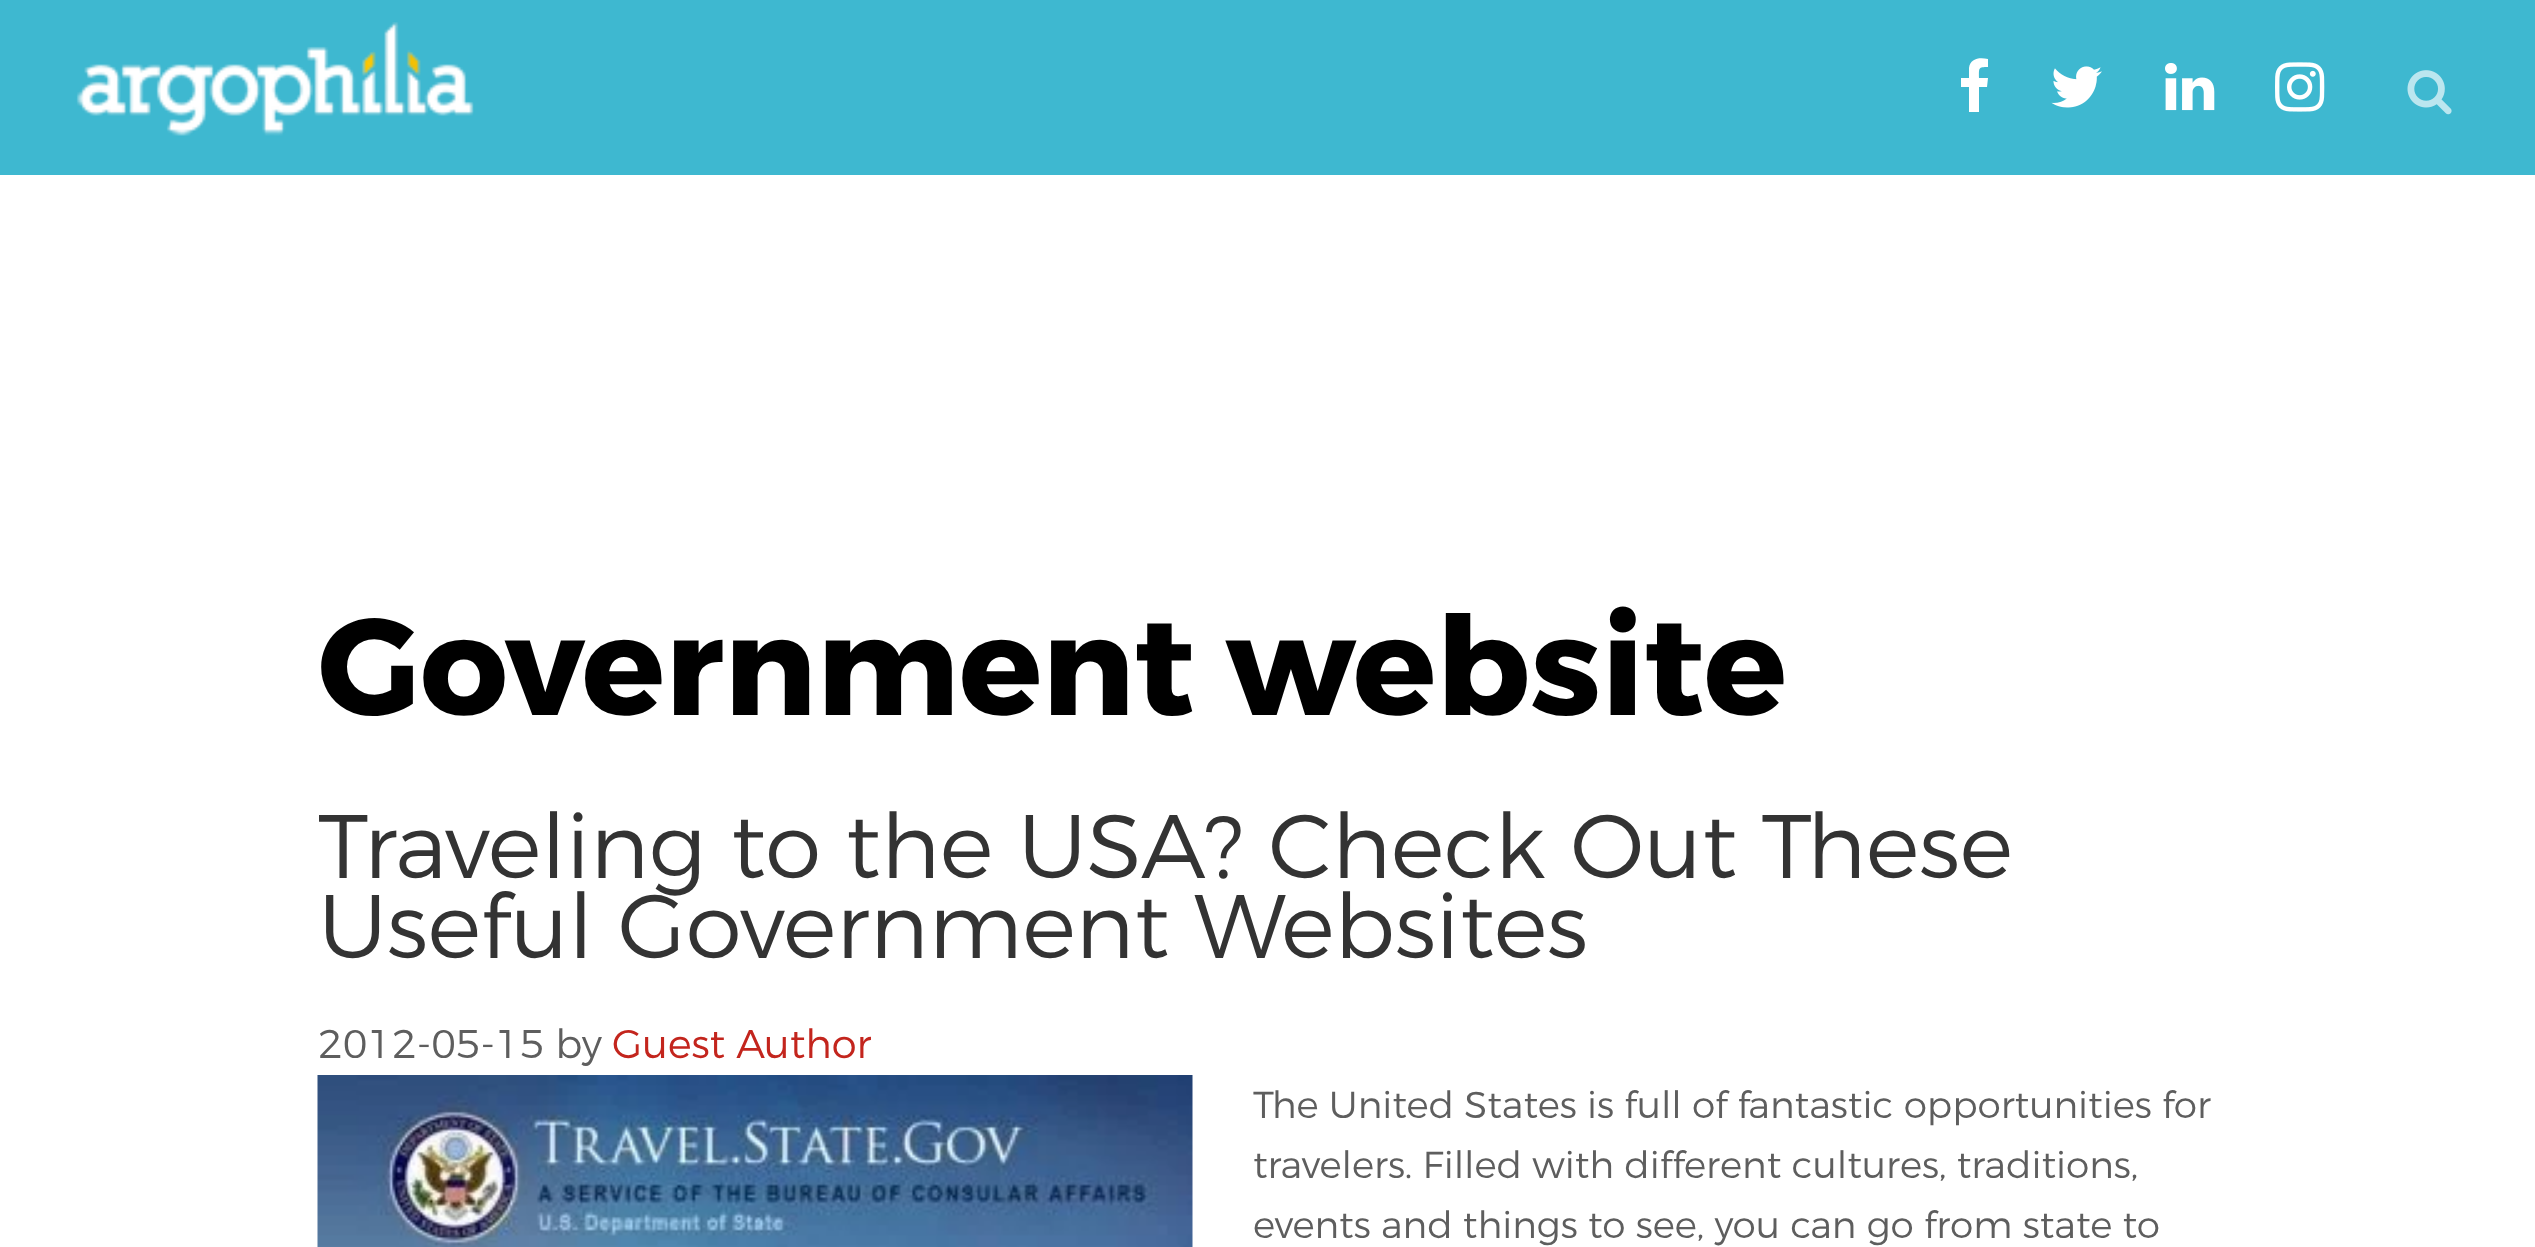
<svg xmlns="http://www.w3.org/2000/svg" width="2535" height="1247">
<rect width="100%" height="100%" fill="#fff"/>
<rect width="2535" height="175" fill="#3eb8d0"/>
<image x="76" y="22" width="398" height="114" href="media/1.png"/>
<path d="M1988 59v8c-10 0-9 1-9 11h9l-1 9h-8v25h-10v-25h-8v-9h8v-10c1-10 11-11 19-9z" fill="#fff"/>
<image x="2051" y="66" width="51" height="42" href="media/2.png"/>
<image x="2165" y="63" width="50" height="48" href="media/3.png"/>
<image x="2275" y="62" width="50" height="50" href="media/4.png"/>
<image x="2407" y="70" width="45" height="45" href="media/5.png"/>
<text x="318" y="715" style="font-family:Montserrat;font-size:137.5px;font-weight:bold;fill:#000">Government website</text>
<text x="318" y="878" style="font-family:Montserrat;font-size:90px;font-weight:300;fill:#333">Traveling to the USA? Check Out These</text>
<text x="318" y="958" style="font-family:Montserrat;font-size:90px;font-weight:300;fill:#333">Useful Government Websites</text>
<text x="318" y="1058" style="font-family:Montserrat;font-size:40px;font-weight:300;fill:#5e5e5e">2012-05-15 by</text>
<text x="612" y="1058" style="font-family:Montserrat;font-size:40px;font-weight:300;fill:#c3251d">Guest Author</text>
<image x="317" y="1075" width="876" height="172" href="media/6.png"/>
<text x="1253" y="1118" style="font-family:Montserrat;font-size:37.5px;font-weight:300;fill:#5e5e5e">The United States is full of fantastic opportunities for</text>
<text x="1253" y="1178" style="font-family:Montserrat;font-size:37.5px;font-weight:300;fill:#5e5e5e">travelers. Filled with different cultures, traditions,</text>
<text x="1253" y="1238" style="font-family:Montserrat;font-size:37.5px;font-weight:300;fill:#5e5e5e">events and things to see, you can go from state to</text>
</svg>
